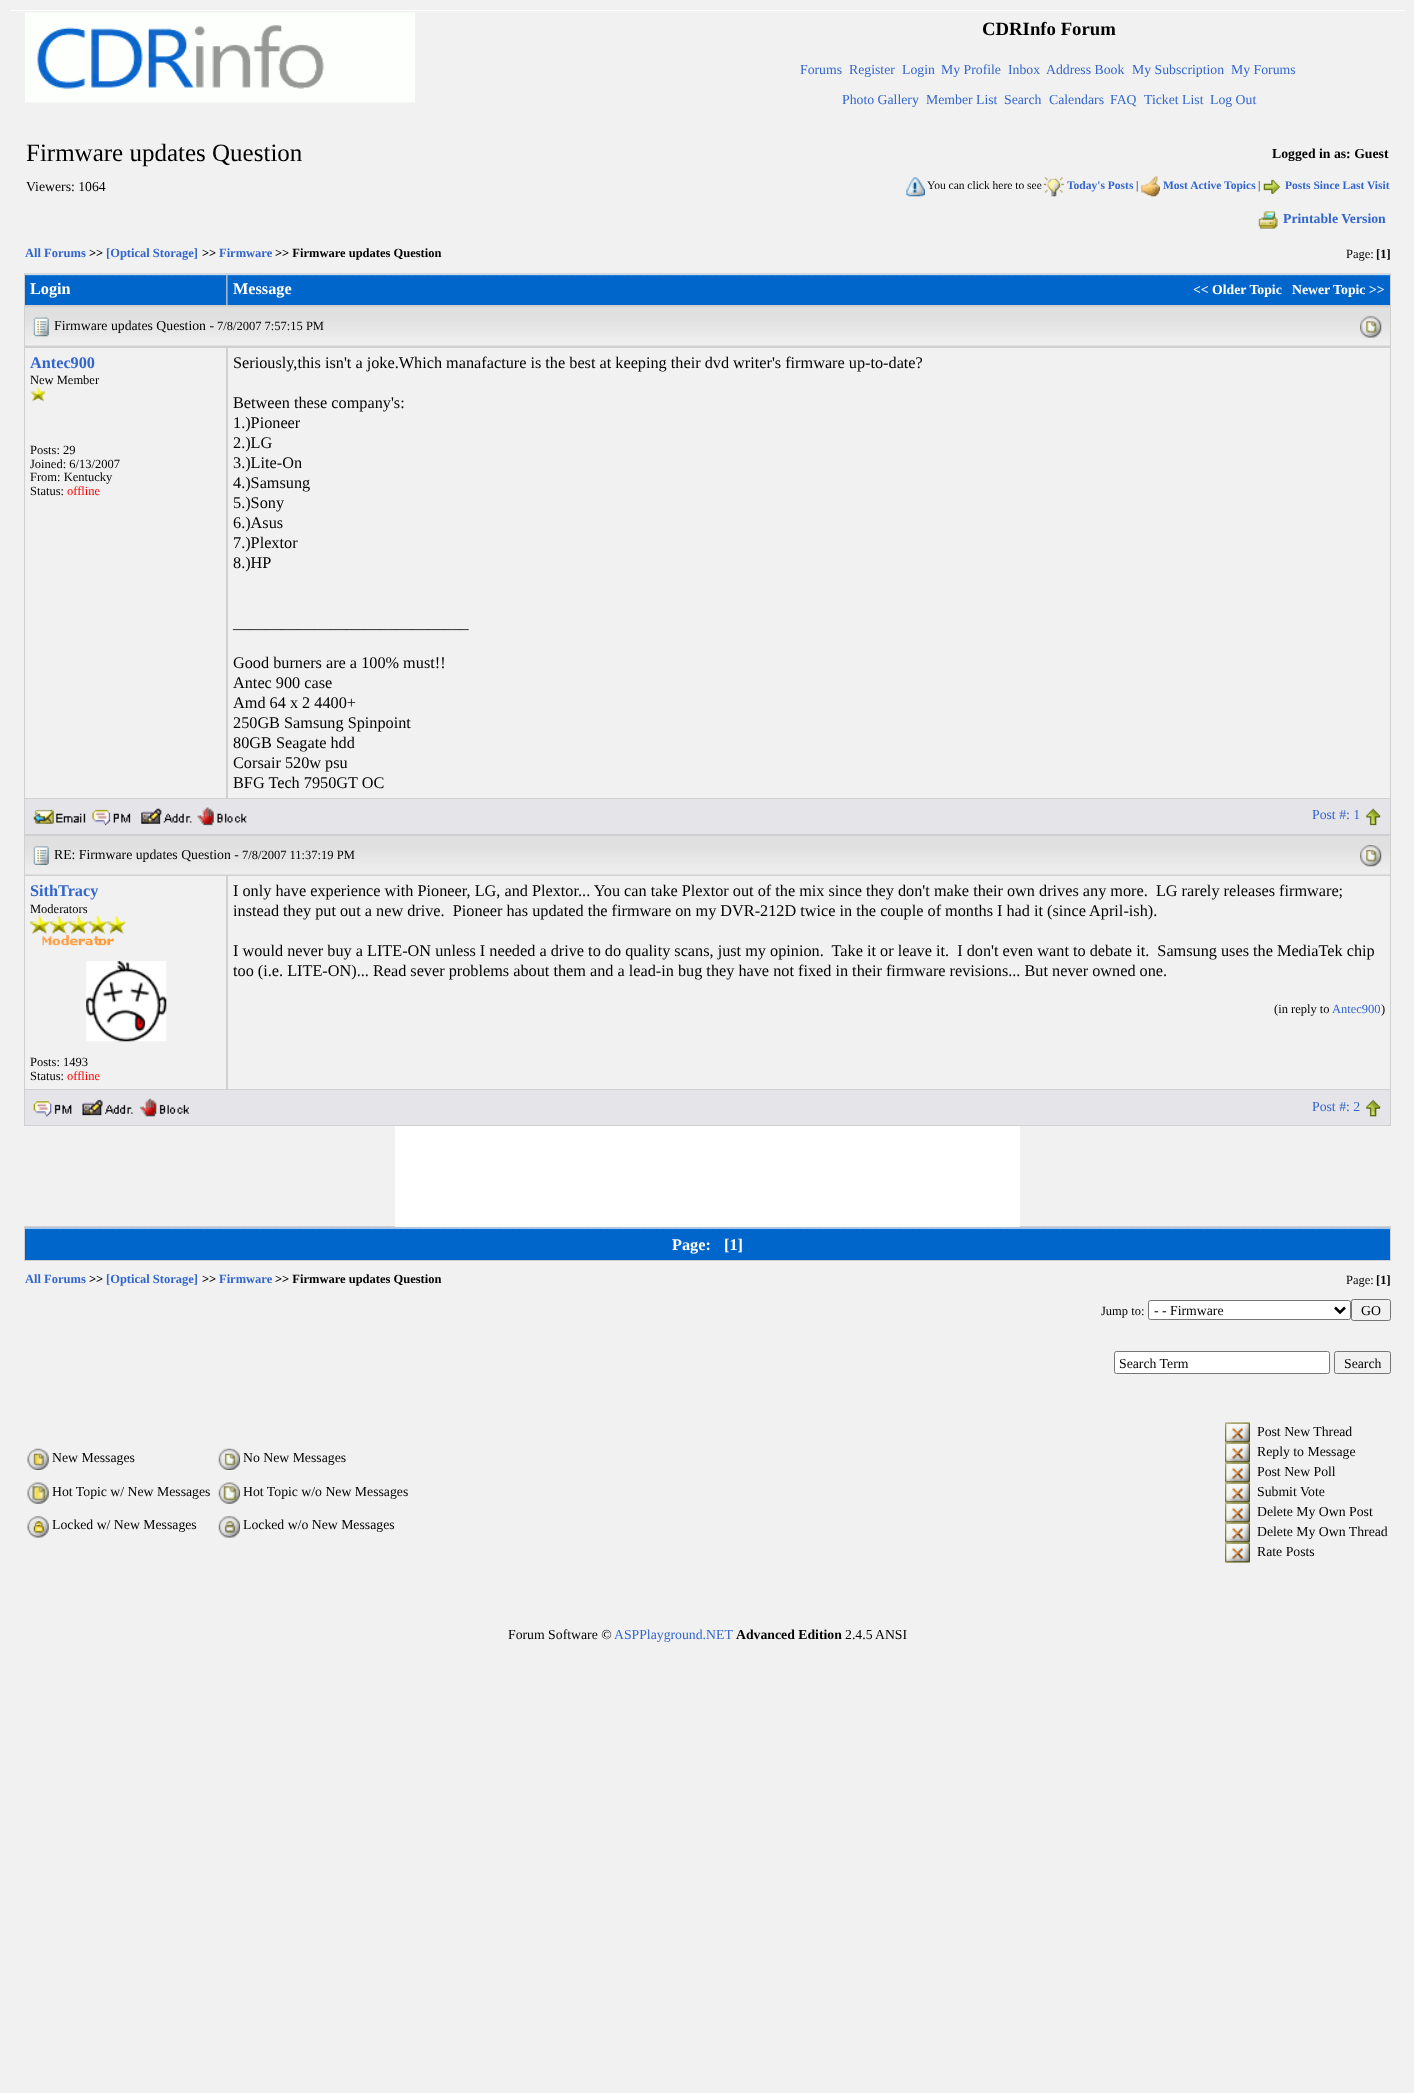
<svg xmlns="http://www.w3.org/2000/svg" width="1414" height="2093">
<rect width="100%" height="100%" fill="#f1f1f1"/>
<rect x="10" y="10" width="1395" height="1" fill="#fff"/>
<image x="25" y="12" width="390" height="91" href="media/1.png"/>
<text x="982" y="35" style="font-family:Liberation Serif;font-size:18.75px;font-weight:bold;fill:#000">CDRInfo Forum</text>
<text x="800" y="74" style="font-family:Liberation Serif;font-size:13.75px;fill:#36c">Forums</text>
<text x="849" y="74" style="font-family:Liberation Serif;font-size:13.75px;fill:#36c">Register</text>
<text x="902" y="74" style="font-family:Liberation Serif;font-size:13.75px;fill:#36c">Login</text>
<text x="941" y="74" style="font-family:Liberation Serif;font-size:13.75px;fill:#36c">My Profile</text>
<text x="1008" y="74" style="font-family:Liberation Serif;font-size:13.75px;fill:#36c">Inbox</text>
<text x="1046" y="74" style="font-family:Liberation Serif;font-size:13.75px;fill:#36c">Address Book</text>
<text x="1132" y="74" style="font-family:Liberation Serif;font-size:13.75px;fill:#36c">My Subscription</text>
<text x="1231" y="74" style="font-family:Liberation Serif;font-size:13.75px;fill:#36c">My Forums</text>
<text x="842" y="104" style="font-family:Liberation Serif;font-size:13.75px;fill:#36c">Photo Gallery</text>
<text x="926" y="104" style="font-family:Liberation Serif;font-size:13.75px;fill:#36c">Member List</text>
<text x="1004" y="104" style="font-family:Liberation Serif;font-size:13.75px;fill:#36c">Search</text>
<text x="1049" y="104" style="font-family:Liberation Serif;font-size:13.75px;fill:#36c">Calendars</text>
<text x="1110" y="104" style="font-family:Liberation Serif;font-size:13.75px;fill:#36c">FAQ</text>
<text x="1144" y="104" style="font-family:Liberation Serif;font-size:13.75px;fill:#36c">Ticket List</text>
<text x="1210" y="104" style="font-family:Liberation Serif;font-size:13.75px;fill:#36c">Log Out</text>
<text x="26" y="161" style="font-family:Liberation Serif;font-size:25px;fill:#000">Firmware updates Question</text>
<text x="1272" y="158" style="font-family:Liberation Serif;font-size:13.75px;font-weight:bold;fill:#000">Logged in as: Guest</text>
<text x="26" y="191" style="font-family:Liberation Serif;font-size:13.75px;fill:#000">Viewers: 1064</text>
<image x="906" y="177" width="19" height="20" href="media/2.png"/>
<text x="927" y="189" style="font-family:Liberation Serif;font-size:11.5px;fill:#000">You can click here to see</text>
<image x="1043" y="177" width="21" height="20" href="media/3.png"/>
<text x="1067" y="189" style="font-family:Liberation Serif;font-size:11.5px;font-weight:bold;fill:#36c">Today's Posts</text>
<text x="1136" y="189" style="font-family:Liberation Serif;font-size:11.5px;fill:#000">|</text>
<image x="1141" y="176" width="19" height="21" href="media/4.png"/>
<text x="1163" y="189" style="font-family:Liberation Serif;font-size:11.5px;font-weight:bold;fill:#36c">Most Active Topics</text>
<text x="1258" y="189" style="font-family:Liberation Serif;font-size:11.5px;fill:#000">|</text>
<image x="1263" y="179" width="18" height="15" href="media/5.png"/>
<text x="1285" y="189" style="font-family:Liberation Serif;font-size:11.5px;font-weight:bold;fill:#36c">Posts Since Last Visit</text>
<image x="1258" y="211" width="20" height="18" href="media/6.png"/>
<text x="1283" y="223" style="font-family:Liberation Serif;font-size:13.75px;font-weight:bold;fill:#36c">Printable Version</text>
<text x="25" y="257" style="font-family:Liberation Serif;font-size:12.5px;font-weight:bold;fill:#36c">All Forums</text>
<text x="89" y="257" style="font-family:Liberation Serif;font-size:12.5px;font-weight:bold;fill:#000">&gt;&gt;</text>
<text x="106" y="257" style="font-family:Liberation Serif;font-size:12.5px;font-weight:bold;fill:#36c">[Optical Storage]</text>
<text x="202" y="257" style="font-family:Liberation Serif;font-size:12.5px;font-weight:bold;fill:#000">&gt;&gt;</text>
<text x="219" y="257" style="font-family:Liberation Serif;font-size:12.5px;font-weight:bold;fill:#36c">Firmware</text>
<text x="275" y="257" style="font-family:Liberation Serif;font-size:12.5px;font-weight:bold;fill:#000">&gt;&gt; Firmware updates Question</text>
<text x="1346" y="258" style="font-family:Liberation Serif;font-size:12.5px;fill:#000">Page:</text>
<text x="1376" y="258" style="font-family:Liberation Serif;font-size:12.5px;font-weight:bold;fill:#000">[1]</text>
<rect x="24" y="273" width="1367" height="853" fill="#d0d0d0"/>
<image x="25" y="273" width="202" height="32" href="media/7.png"/>
<text x="30" y="294" style="font-family:Liberation Serif;font-size:16.25px;font-weight:bold;fill:#fff">Login</text>
<image x="227" y="273" width="1163" height="32" href="media/8.png"/>
<text x="233" y="294" style="font-family:Liberation Serif;font-size:16.25px;font-weight:bold;fill:#fff">Message</text>
<text x="1193" y="294" style="font-family:Liberation Serif;font-size:13.75px;font-weight:bold;fill:#fff">&lt;&lt; Older Topic</text>
<text x="1292" y="294" style="font-family:Liberation Serif;font-size:13.75px;font-weight:bold;fill:#fff">Newer Topic &gt;&gt;</text>
<image x="25" y="307" width="1365" height="39" href="media/9.png"/>
<image x="33" y="317" width="16" height="20" href="media/10.png"/>
<text x="54" y="330" style="font-family:Liberation Serif;font-size:13.75px;fill:#000">Firmware updates Question -</text>
<text x="217" y="330" style="font-family:Liberation Serif;font-size:12.5px;fill:#000">7/8/2007 7:57:15 PM</text>
<image x="1360" y="316" width="22" height="22" href="media/11.png"/>
<rect x="25" y="348" width="201" height="450" fill="#f1f1f1"/>
<text x="30" y="368" style="font-family:Liberation Serif;font-size:16.25px;font-weight:bold;fill:#36c">Antec900</text>
<text x="30" y="384" style="font-family:Liberation Serif;font-size:12.5px;fill:#000">New Member</text>
<image x="31" y="387" width="15" height="15" href="media/12.png"/>
<text x="30" y="454" style="font-family:Liberation Serif;font-size:12.5px;fill:#000">Posts: 29</text>
<text x="30" y="468" style="font-family:Liberation Serif;font-size:12.5px;fill:#000">Joined: 6/13/2007</text>
<text x="30" y="481" style="font-family:Liberation Serif;font-size:12.5px;fill:#000">From: Kentucky</text>
<text x="30" y="495" style="font-family:Liberation Serif;font-size:12.5px;fill:#000">Status:</text>
<text x="67" y="495" style="font-family:Liberation Serif;font-size:12.5px;fill:#f00">offline</text>
<rect x="228" y="348" width="1162" height="450" fill="#f1f1f1"/>
<text x="233" y="368" style="font-family:Liberation Serif;font-size:16.25px;fill:#000">Seriously,this isn't a joke.Which manafacture is the best at keeping their dvd writer's firmware up-to-date?</text>
<text x="233" y="408" style="font-family:Liberation Serif;font-size:16.25px;fill:#000">Between these company's:</text>
<text x="233" y="428" style="font-family:Liberation Serif;font-size:16.25px;fill:#000">1.)Pioneer</text>
<text x="233" y="448" style="font-family:Liberation Serif;font-size:16.25px;fill:#000">2.)LG</text>
<text x="233" y="468" style="font-family:Liberation Serif;font-size:16.25px;fill:#000">3.)Lite-On</text>
<text x="233" y="488" style="font-family:Liberation Serif;font-size:16.25px;fill:#000">4.)Samsung</text>
<text x="233" y="508" style="font-family:Liberation Serif;font-size:16.25px;fill:#000">5.)Sony</text>
<text x="233" y="528" style="font-family:Liberation Serif;font-size:16.25px;fill:#000">6.)Asus</text>
<text x="233" y="548" style="font-family:Liberation Serif;font-size:16.25px;fill:#000">7.)Plextor</text>
<text x="233" y="568" style="font-family:Liberation Serif;font-size:16.25px;fill:#000">8.)HP</text>
<text x="233" y="628" style="font-family:Liberation Serif;font-size:16.25px;fill:#000">_____________________________</text>
<text x="233" y="668" style="font-family:Liberation Serif;font-size:16.25px;fill:#000">Good burners are a 100% must!!</text>
<text x="233" y="688" style="font-family:Liberation Serif;font-size:16.25px;fill:#000">Antec 900 case</text>
<text x="233" y="708" style="font-family:Liberation Serif;font-size:16.25px;fill:#000">Amd 64 x 2 4400+</text>
<text x="233" y="728" style="font-family:Liberation Serif;font-size:16.25px;fill:#000">250GB Samsung Spinpoint</text>
<text x="233" y="748" style="font-family:Liberation Serif;font-size:16.25px;fill:#000">80GB Seagate hdd</text>
<text x="233" y="768" style="font-family:Liberation Serif;font-size:16.25px;fill:#000">Corsair 520w psu</text>
<text x="233" y="788" style="font-family:Liberation Serif;font-size:16.25px;fill:#000">BFG Tech 7950GT OC</text>
<rect x="25" y="799" width="1365" height="35" fill="#e5e4e9"/>
<image x="33" y="809" width="53" height="15" href="media/13.png"/>
<image x="92" y="809" width="39" height="17" href="media/14.png"/>
<image x="141" y="808" width="51" height="16" href="media/15.png"/>
<image x="197" y="807" width="50" height="19" href="media/16.png"/>
<text x="1312" y="819" style="font-family:Liberation Serif;font-size:13.75px;fill:#36c">Post #: 1</text>
<image x="1366" y="808" width="15" height="18" href="media/17.png"/>
<image x="25" y="836" width="1365" height="39" href="media/18.png"/>
<image x="33" y="846" width="16" height="19" href="media/19.png"/>
<text x="54" y="859" style="font-family:Liberation Serif;font-size:13.75px;fill:#000">RE: Firmware updates Question -</text>
<text x="242" y="859" style="font-family:Liberation Serif;font-size:12.5px;fill:#000">7/8/2007 11:37:19 PM</text>
<image x="1360" y="845" width="22" height="22" href="media/20.png"/>
<rect x="25" y="876" width="201" height="213" fill="#f1f1f1"/>
<text x="30" y="896" style="font-family:Liberation Serif;font-size:16.25px;font-weight:bold;fill:#36c">SithTracy</text>
<text x="30" y="913" style="font-family:Liberation Serif;font-size:12.5px;fill:#000">Moderators</text>
<image x="30" y="915" width="96" height="31" href="media/21.png"/>
<image x="86" y="961" width="81" height="81" href="media/22.png"/>
<text x="30" y="1066" style="font-family:Liberation Serif;font-size:12.5px;fill:#000">Posts: 1493</text>
<text x="30" y="1080" style="font-family:Liberation Serif;font-size:12.5px;fill:#000">Status:</text>
<text x="67" y="1080" style="font-family:Liberation Serif;font-size:12.5px;fill:#f00">offline</text>
<rect x="228" y="876" width="1162" height="213" fill="#f1f1f1"/>
<text x="233" y="896" style="font-family:Liberation Serif;font-size:16.25px;fill:#000" xml:space="preserve">I only have experience with Pioneer, LG, and Plextor... You can take Plextor out of the mix since they don't make their own drives any more.  LG rarely releases firmware;</text>
<text x="233" y="916" style="font-family:Liberation Serif;font-size:16.25px;fill:#000" xml:space="preserve">instead they put out a new drive.  Pioneer has updated the firmware on my DVR-212D twice in the couple of months I had it (since April-ish).</text>
<text x="233" y="956" style="font-family:Liberation Serif;font-size:16.25px;fill:#000" xml:space="preserve">I would never buy a LITE-ON unless I needed a drive to do quality scans, just my opinion.  Take it or leave it.  I don't even want to debate it.  Samsung uses the MediaTek chip</text>
<text x="233" y="976" style="font-family:Liberation Serif;font-size:16.25px;fill:#000">too (i.e. LITE-ON)... Read sever problems about them and a lead-in bug they have not fixed in their firmware revisions... But never owned one.</text>
<text x="1274" y="1013" style="font-family:Liberation Serif;font-size:12.5px;fill:#000">(in reply to</text>
<text x="1332" y="1013" style="font-family:Liberation Serif;font-size:12.5px;fill:#36c">Antec900</text>
<text x="1381" y="1013" style="font-family:Liberation Serif;font-size:12.5px;fill:#000">)</text>
<rect x="25" y="1090" width="1365" height="35" fill="#e5e4e9"/>
<image x="33" y="1101" width="39" height="16" href="media/23.png"/>
<image x="82" y="1099" width="51" height="17" href="media/24.png"/>
<image x="139" y="1098" width="50" height="19" href="media/25.png"/>
<text x="1312" y="1111" style="font-family:Liberation Serif;font-size:13.75px;fill:#36c">Post #: 2</text>
<image x="1366" y="1099" width="15" height="18" href="media/26.png"/>
<rect x="24" y="1226" width="1367" height="35" fill="#d0d0d0"/>
<rect x="395" y="1126" width="625" height="101" fill="#fff"/>
<image x="25" y="1227" width="1365" height="33" href="media/27.png"/>
<text x="672" y="1250" style="font-family:Liberation Serif;font-size:16.25px;font-weight:bold;fill:#fff">Page:</text>
<text x="724" y="1250" style="font-family:Liberation Serif;font-size:16.25px;font-weight:bold;fill:#fff">[1]</text>
<text x="25" y="1283" style="font-family:Liberation Serif;font-size:12.5px;font-weight:bold;fill:#36c">All Forums</text>
<text x="89" y="1283" style="font-family:Liberation Serif;font-size:12.5px;font-weight:bold;fill:#000">&gt;&gt;</text>
<text x="106" y="1283" style="font-family:Liberation Serif;font-size:12.5px;font-weight:bold;fill:#36c">[Optical Storage]</text>
<text x="202" y="1283" style="font-family:Liberation Serif;font-size:12.5px;font-weight:bold;fill:#000">&gt;&gt;</text>
<text x="219" y="1283" style="font-family:Liberation Serif;font-size:12.5px;font-weight:bold;fill:#36c">Firmware</text>
<text x="275" y="1283" style="font-family:Liberation Serif;font-size:12.5px;font-weight:bold;fill:#000">&gt;&gt; Firmware updates Question</text>
<text x="1346" y="1284" style="font-family:Liberation Serif;font-size:12.5px;fill:#000">Page:</text>
<text x="1376" y="1284" style="font-family:Liberation Serif;font-size:12.5px;font-weight:bold;fill:#000">[1]</text>
<text x="1101" y="1315" style="font-family:Liberation Serif;font-size:12.5px;fill:#000">Jump to:</text>
<rect x="1148.5" y="1300.5" width="202" height="19" rx="2" fill="#fff" stroke="#767676"/>
<path d="M1335 1307.5l5 5l5-5" fill="none" stroke="#000" stroke-width="2.5"/>
<text x="1154" y="1315" style="font-family:Liberation Serif;font-size:13.75px;fill:#000">- - Firmware</text>
<rect x="1351.5" y="1299.5" width="39" height="21" rx="2" fill="none" stroke="#767676"/>
<text x="1361" y="1315" style="font-family:Liberation Serif;font-size:13.75px;fill:#000">GO</text>
<rect x="1114.5" y="1351.5" width="215" height="22" rx="2" fill="#fff" stroke="#767676"/>
<text x="1119" y="1368" style="font-family:Liberation Serif;font-size:13.75px;fill:#000">Search Term</text>
<rect x="1334.5" y="1351.5" width="56" height="22" rx="2" fill="none" stroke="#767676"/>
<text x="1344" y="1368" style="font-family:Liberation Serif;font-size:13.75px;fill:#000">Search</text>
<image x="27" y="1448" width="22" height="22" href="media/28.png"/>
<text x="52" y="1462" style="font-family:Liberation Serif;font-size:13.75px;fill:#000">New Messages</text>
<image x="218" y="1448" width="22" height="22" href="media/29.png"/>
<text x="243" y="1462" style="font-family:Liberation Serif;font-size:13.75px;fill:#000">No New Messages</text>
<image x="27" y="1482" width="22" height="22" href="media/30.png"/>
<text x="52" y="1496" style="font-family:Liberation Serif;font-size:13.75px;fill:#000">Hot Topic w/ New Messages</text>
<image x="218" y="1482" width="22" height="22" href="media/31.png"/>
<text x="243" y="1496" style="font-family:Liberation Serif;font-size:13.75px;fill:#000">Hot Topic w/o New Messages</text>
<image x="27" y="1516" width="22" height="22" href="media/32.png"/>
<text x="52" y="1529" style="font-family:Liberation Serif;font-size:13.75px;fill:#000">Locked w/ New Messages</text>
<image x="218" y="1516" width="22" height="22" href="media/33.png"/>
<text x="243" y="1529" style="font-family:Liberation Serif;font-size:13.75px;fill:#000">Locked w/o New Messages</text>
<image x="1225" y="1422" width="25" height="21" href="media/34.png"/>
<text x="1257" y="1436" style="font-family:Liberation Serif;font-size:13.75px;fill:#000">Post New Thread</text>
<image x="1225" y="1442" width="25" height="21" href="media/35.png"/>
<text x="1257" y="1456" style="font-family:Liberation Serif;font-size:13.75px;fill:#000">Reply to Message</text>
<image x="1225" y="1462" width="25" height="21" href="media/35.png"/>
<text x="1257" y="1476" style="font-family:Liberation Serif;font-size:13.75px;fill:#000">Post New Poll</text>
<image x="1225" y="1482" width="25" height="21" href="media/35.png"/>
<text x="1257" y="1496" style="font-family:Liberation Serif;font-size:13.75px;fill:#000">Submit Vote</text>
<image x="1225" y="1502" width="25" height="21" href="media/35.png"/>
<text x="1257" y="1516" style="font-family:Liberation Serif;font-size:13.75px;fill:#000">Delete My Own Post</text>
<image x="1225" y="1522" width="25" height="21" href="media/35.png"/>
<text x="1257" y="1536" style="font-family:Liberation Serif;font-size:13.75px;fill:#000">Delete My Own Thread</text>
<image x="1225" y="1542" width="25" height="21" href="media/35.png"/>
<text x="1257" y="1556" style="font-family:Liberation Serif;font-size:13.75px;fill:#000">Rate Posts</text>
<text x="508" y="1639" style="font-family:Liberation Serif;font-size:13.75px;fill:#000">Forum Software ©</text>
<text x="614" y="1639" style="font-family:Liberation Serif;font-size:13.75px;fill:#36c">ASPPlayground.NET</text>
<text x="736" y="1639" style="font-family:Liberation Serif;font-size:13.75px;font-weight:bold;fill:#000">Advanced Edition</text>
<text x="845" y="1639" style="font-family:Liberation Serif;font-size:13.75px;fill:#000">2.4.5</text>
<text x="875" y="1639" style="font-family:Liberation Serif;font-size:13.75px;fill:#000">ANSI</text>
</svg>
